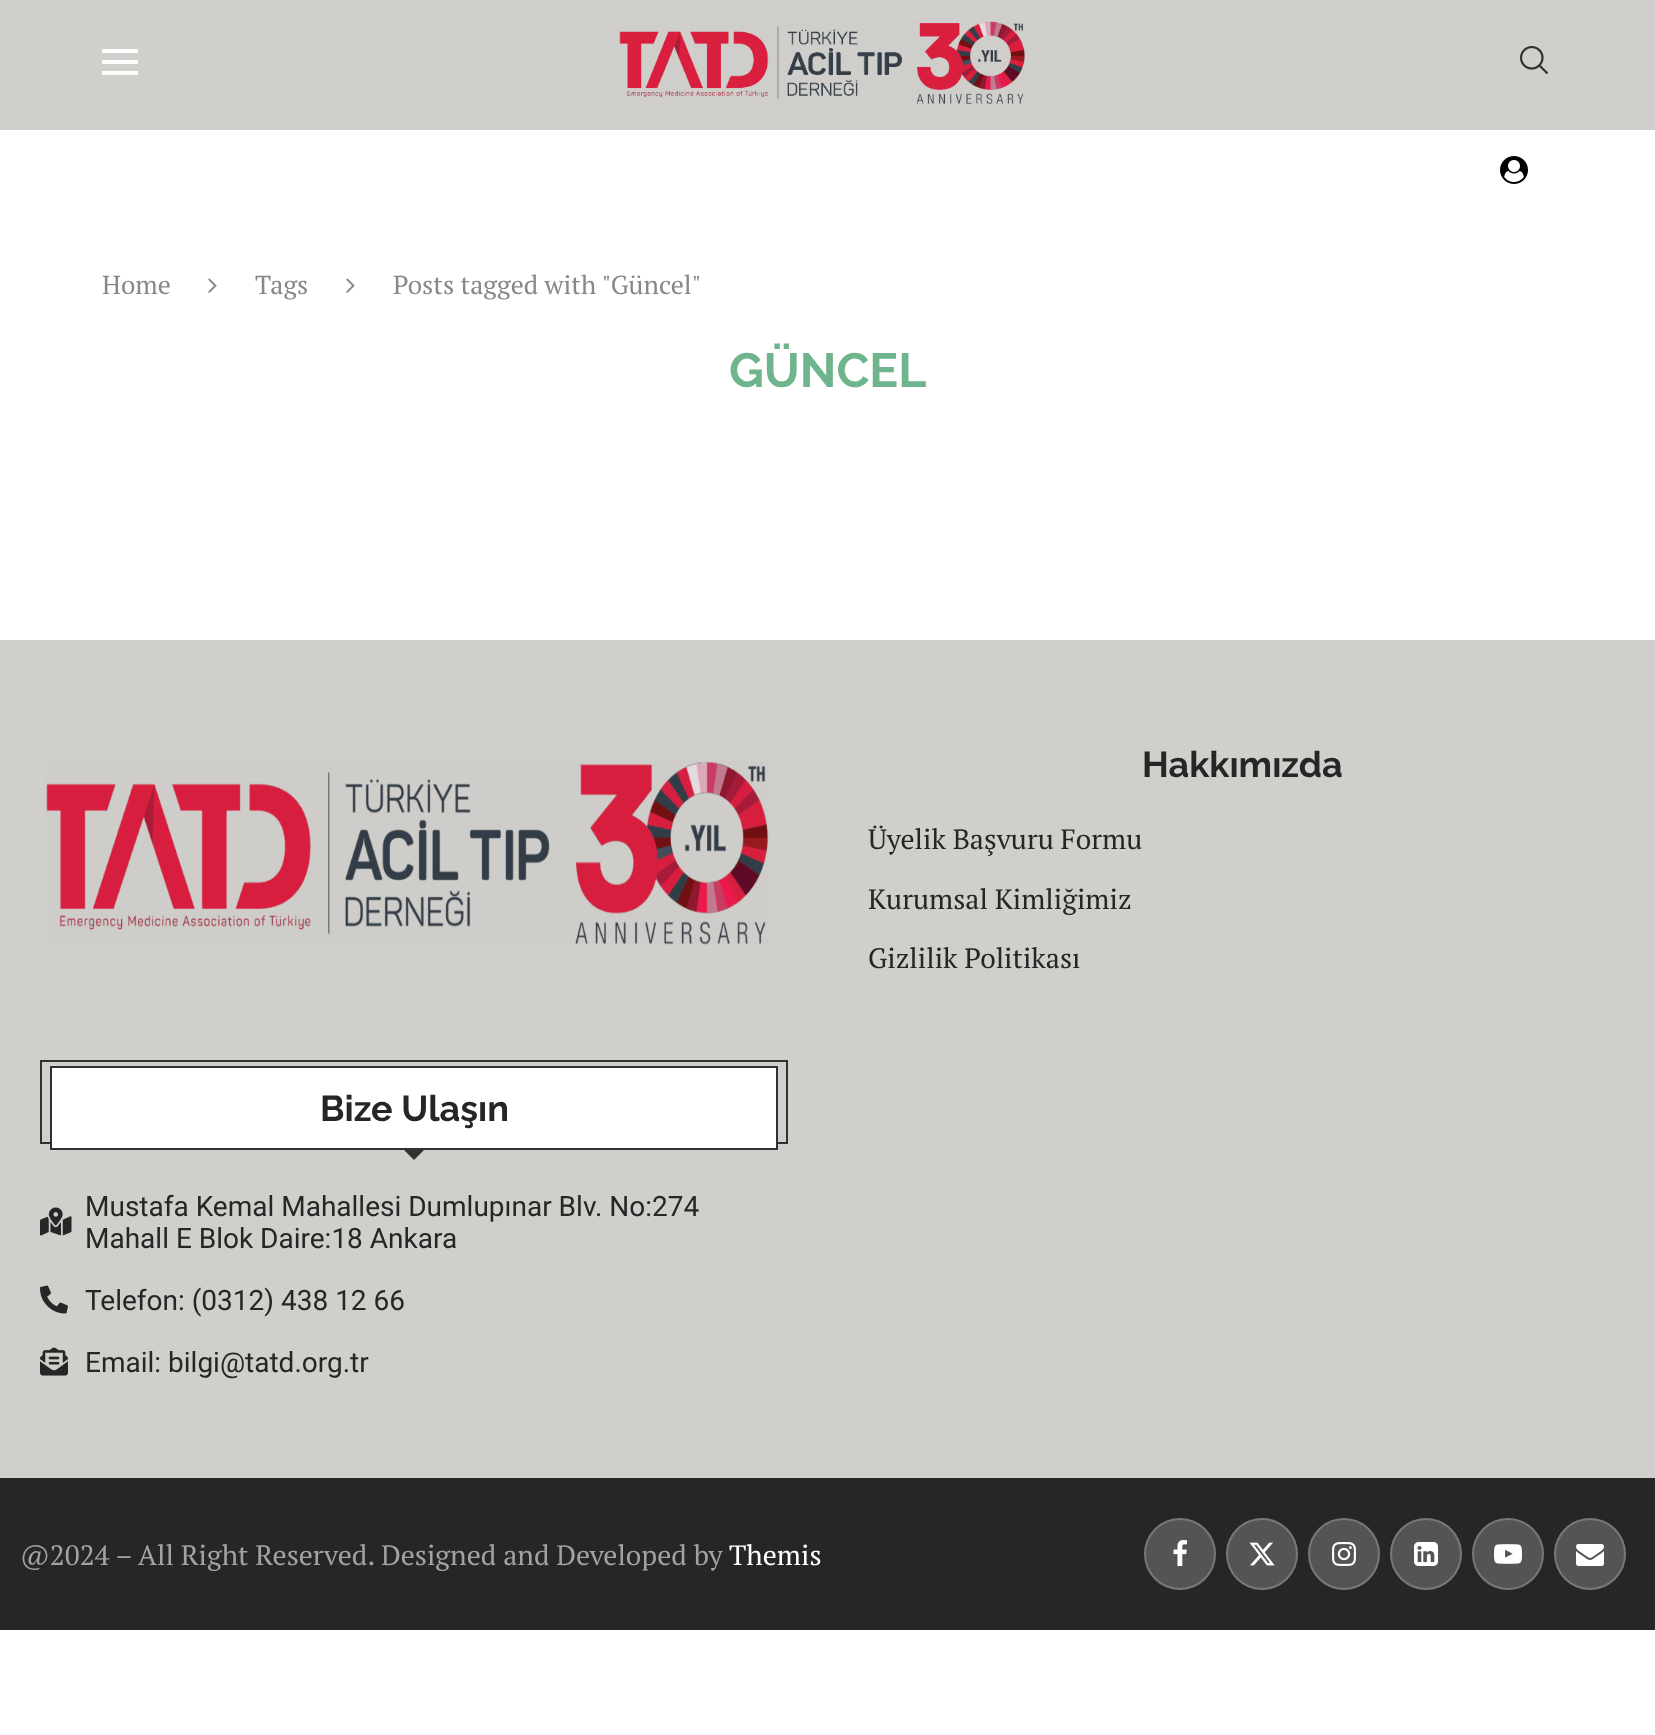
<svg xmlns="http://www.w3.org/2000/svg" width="1655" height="1735">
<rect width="100%" height="100%" fill="#fff"/>
<rect width="1655" height="130" fill="#d0cfcb"/>
<rect x="102" y="49" width="36" height="4" fill="#fff"/>
<rect x="102" y="60" width="36" height="4" fill="#fff"/>
<rect x="102" y="71" width="36" height="4" fill="#fff"/>
<image x="619" y="21" width="406" height="84" href="media/1.png"/>
<image x="1520" y="46" width="28" height="28" href="media/2.png"/>
<image x="1500" y="156" width="28" height="28" href="media/3.png"/>
<text x="102" y="294" style="font-family:PT Serif;font-size:26px;fill:#888">Home</text>
<image x="208" y="278" width="9" height="15" href="media/4.png"/>
<text x="255" y="294" style="font-family:PT Serif;font-size:26px;fill:#888">Tags</text>
<image x="346" y="278" width="9" height="15" href="media/4.png"/>
<text x="393" y="294" style="font-family:PT Serif;font-size:26px;fill:#888">Posts tagged with "Güncel"</text>
<text x="729" y="387" style="font-family:Raleway;font-size:48px;font-weight:bold;fill:#6eb48c">GÜNCEL</text>
<rect y="640" width="1655" height="838" fill="#d0cfcb"/>
<image x="46" y="761" width="723" height="184" href="media/5.png"/>
<text x="1142" y="777" style="font-family:Raleway;font-size:36px;font-weight:bold;fill:#262626">Hakkımızda</text>
<text x="868" y="849" style="font-family:PT Serif;font-size:28px;fill:#262626">Üyelik Başvuru Formu</text>
<text x="868" y="909" style="font-family:PT Serif;font-size:28px;fill:#262626">Kurumsal Kimliğimiz</text>
<text x="868" y="968" style="font-family:PT Serif;font-size:28px;fill:#262626">Gizlilik Politikası</text>
<rect x="41" y="1061" width="746" height="82" fill="none" stroke="#313131" stroke-width="2"/>
<rect x="51" y="1067" width="726" height="82" fill="#fff" stroke="#313131" stroke-width="2"/>
<text x="320" y="1121" style="font-family:Raleway;font-size:36px;font-weight:bold;fill:#262626">Bize Ulaşın</text>
<path d="M402 1148h24l-12 12z" fill="#313131"/>
<image x="40" y="1207" width="32" height="29" href="media/6.png"/>
<text x="85" y="1216" style="font-family:Roboto;font-size:28px;fill:#262626">Mustafa Kemal Mahallesi Dumlupınar Blv. No:274</text>
<text x="85" y="1248" style="font-family:Roboto;font-size:28px;fill:#262626">Mahall E Blok Daire:18 Ankara</text>
<image x="40" y="1285" width="28" height="29" href="media/7.png"/>
<text x="85" y="1310" style="font-family:Roboto;font-size:28px;fill:#262626">Telefon: (0312) 438 12 66</text>
<image x="40" y="1347" width="28" height="29" href="media/8.png"/>
<text x="85" y="1372" style="font-family:Roboto;font-size:28px;fill:#262626">Email: bilgi@tatd.org.tr</text>
<rect y="1478" width="1655" height="152" fill="#262626"/>
<text x="20" y="1565" style="font-family:PT Serif;font-size:28px;fill:#a2a2a2">@2024 – All Right Reserved. Designed and Developed by</text>
<text x="729" y="1565" style="font-family:PT Serif;font-size:28px;fill:#fff">Themis</text>
<circle cx="1180" cy="1554" r="36" fill="#545454"/>
<circle cx="1180" cy="1554" r="35" fill="none" stroke="#ffffff36" stroke-width="2"/>
<image x="1173" y="1540" width="14" height="26" href="media/9.png"/>
<circle cx="1262" cy="1554" r="36" fill="#545454"/>
<circle cx="1262" cy="1554" r="35" fill="none" stroke="#ffffff36" stroke-width="2"/>
<image x="1249" y="1542" width="26" height="24" href="media/10.png"/>
<circle cx="1344" cy="1554" r="36" fill="#545454"/>
<circle cx="1344" cy="1554" r="35" fill="none" stroke="#ffffff36" stroke-width="2"/>
<image x="1332" y="1542" width="24" height="24" href="media/11.png"/>
<circle cx="1426" cy="1554" r="36" fill="#545454"/>
<circle cx="1426" cy="1554" r="35" fill="none" stroke="#ffffff36" stroke-width="2"/>
<image x="1414" y="1542" width="24" height="24" href="media/12.png"/>
<circle cx="1508" cy="1554" r="36" fill="#545454"/>
<circle cx="1508" cy="1554" r="35" fill="none" stroke="#ffffff36" stroke-width="2"/>
<image x="1494" y="1544" width="28" height="20" href="media/13.png"/>
<circle cx="1590" cy="1554" r="36" fill="#545454"/>
<circle cx="1590" cy="1554" r="35" fill="none" stroke="#ffffff36" stroke-width="2"/>
<image x="1576" y="1544" width="28" height="22" href="media/14.png"/>
</svg>
